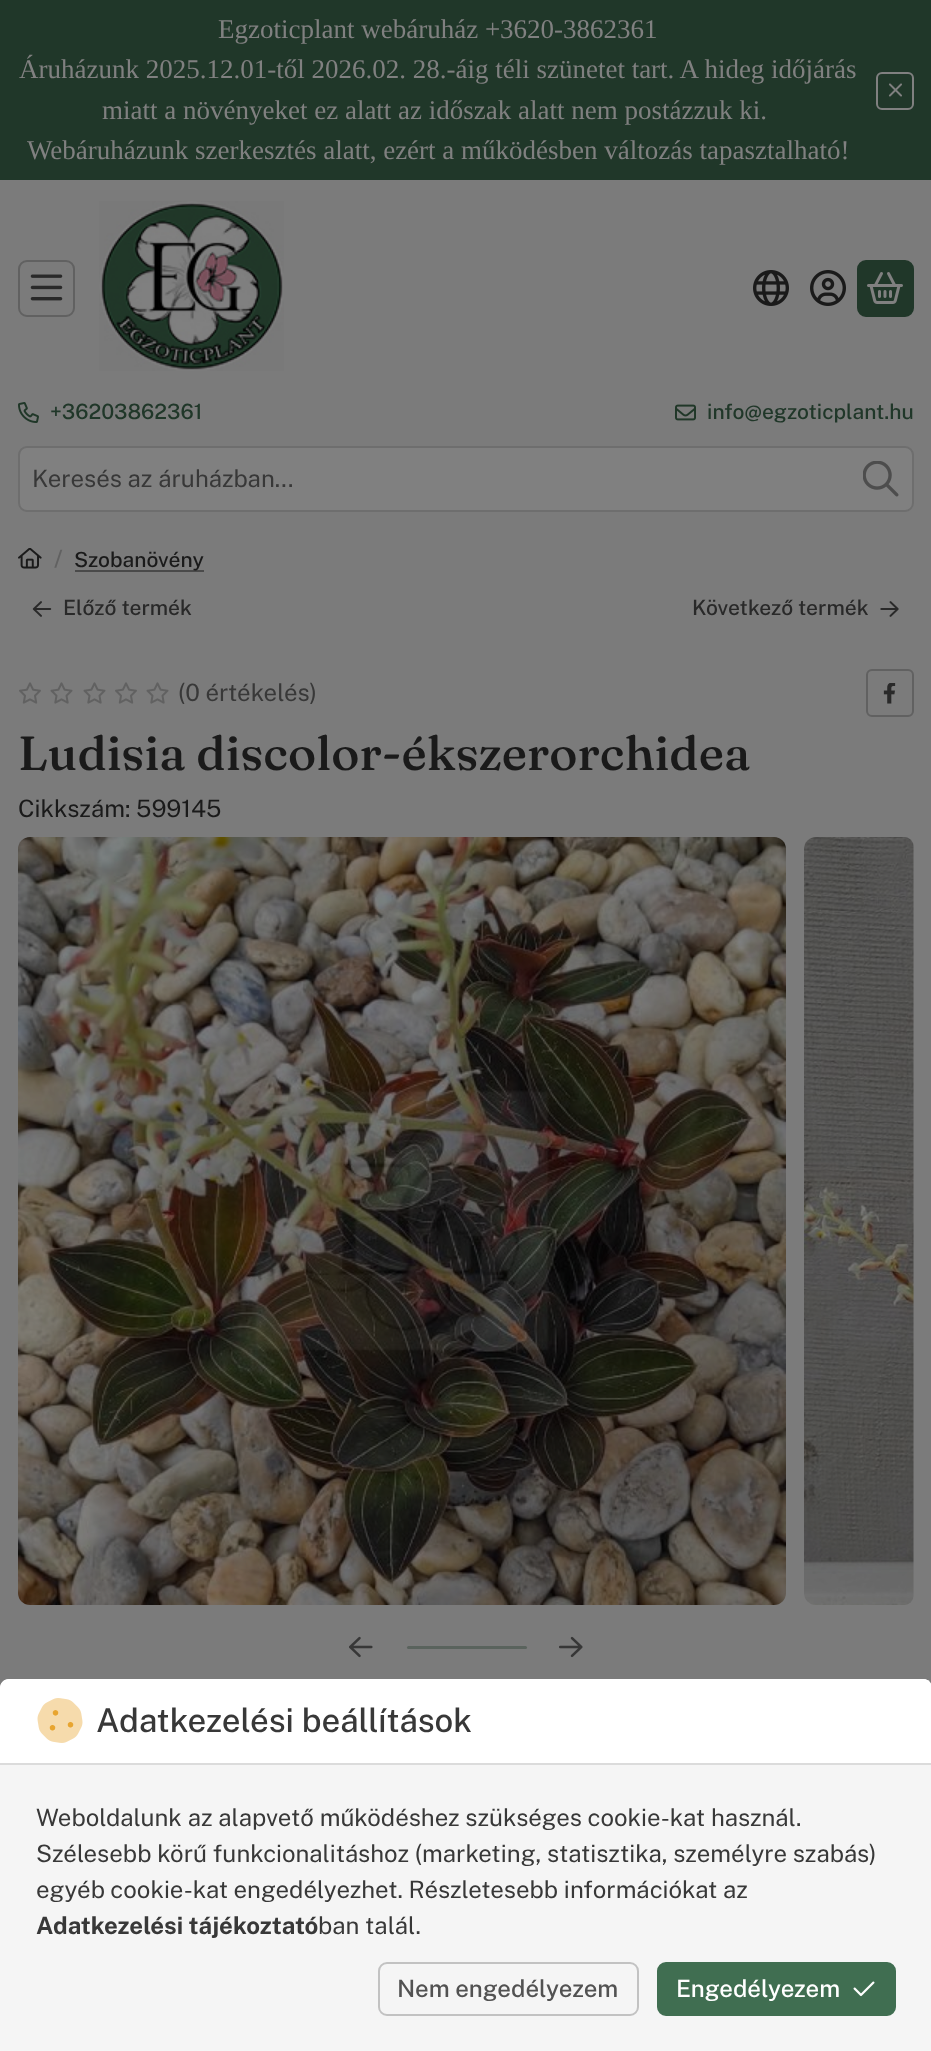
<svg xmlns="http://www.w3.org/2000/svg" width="931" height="2051">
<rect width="100%" height="100%" fill="#7b7b7b"/>
<rect width="931" height="180" fill="#203729"/>
<text x="218" y="38" style="font-family:Liberation Serif;font-size:27px;fill:#808080">Egzoticplant webáruház +3620-3862361</text>
<text x="19" y="78" style="font-family:Liberation Serif;font-size:27px;fill:#808080">Áruházunk 2025.12.01-től 2026.02. 28.-áig téli szünetet tart. A hideg időjárás</text>
<text x="102" y="119" style="font-family:Liberation Serif;font-size:27px;fill:#808080">miatt a növényeket ez alatt az időszak alatt nem postázzuk ki.</text>
<text x="27" y="159" style="font-family:Liberation Serif;font-size:27px;fill:#808080">Webáruházunk szerkesztés alatt, ezért a működésben változás tapasztalható!</text>
<rect x="877" y="73" width="36" height="36" rx="5" fill="none" stroke="#808080" stroke-width="2"/>
<image x="888" y="83" width="14" height="14" href="media/1.png"/>
<rect x="19" y="261" width="55" height="55" rx="8" fill="none" stroke="#616161" stroke-width="2"/>
<image x="30" y="274" width="33" height="27" href="media/2.png"/>
<image x="99" y="201" width="185" height="170" href="media/3.png"/>
<image x="753" y="270" width="36" height="36" href="media/4.png"/>
<image x="810" y="270" width="36" height="36" href="media/5.png"/>
<rect x="858" y="261" width="55" height="55" rx="8" fill="#203729" stroke="#203729" stroke-width="2"/>
<image x="867" y="272" width="36" height="32" href="media/6.png"/>
<image x="18" y="402" width="21" height="21" href="media/7.png"/>
<text x="50" y="419" style="font-family:Public Sans;font-size:21px;font-weight:500;fill:#203729">+36203862361</text>
<image x="675" y="404" width="21" height="17" href="media/8.png"/>
<text x="707" y="419" style="font-family:Public Sans;font-size:21px;font-weight:500;fill:#203729">info@egzoticplant.hu</text>
<rect x="19" y="447" width="894" height="64" rx="8" fill="#808080" stroke="#6e6e6e" stroke-width="2"/>
<text x="32" y="487" style="font-family:Public Sans;font-size:24px;fill:#383838">Keresés az áruházban...</text>
<image x="863" y="461" width="36" height="36" href="media/9.png"/>
<image x="18" y="548" width="24" height="21" href="media/10.png"/>
<text x="54" y="567" style="font-family:Public Sans;font-size:24px;font-weight:500;fill:#616161">/</text>
<rect x="75" y="570" width="129" height="2" fill="#4a4a4a"/>
<text x="74" y="567" style="font-family:Public Sans;font-size:21px;font-weight:500;fill:#1a1a1a">Szobanövény</text>
<image x="32" y="601" width="20" height="16" href="media/11.png"/>
<text x="63" y="615" style="font-family:Public Sans;font-size:21px;font-weight:500;fill:#292929">Előző termék</text>
<text x="692" y="615" style="font-family:Public Sans;font-size:21px;font-weight:500;fill:#292929">Következő termék</text>
<image x="880" y="601" width="19" height="16" href="media/12.png"/>
<image x="19" y="682" width="22" height="22" href="media/13.png"/>
<image x="50" y="682" width="23" height="22" href="media/14.png"/>
<image x="83" y="682" width="23" height="22" href="media/14.png"/>
<image x="115" y="682" width="22" height="22" href="media/13.png"/>
<image x="146" y="682" width="23" height="22" href="media/14.png"/>
<text x="178" y="701" style="font-family:Public Sans;font-size:24px;fill:#383838">(0 értékelés)</text>
<rect x="867" y="670" width="46" height="46" rx="5" fill="none" stroke="#616161" stroke-width="2"/>
<image x="883" y="683" width="13" height="21" href="media/15.png"/>
<text x="18" y="770" style="font-family:Fraunces;font-size:47.9px;font-weight:500;fill:#1a1a1a">Ludisia discolor-ékszerorchidea</text>
<text x="18" y="817" style="font-family:Public Sans;font-size:24px;fill:#1a1a1a">Cikkszám: 599145</text>
<image x="18" y="837" width="768" height="768" href="media/16.png"/>
<image x="804" y="837" width="110" height="768" href="media/17.png"/>
<image x="349" y="1636" width="24" height="22" href="media/18.png"/>
<rect x="407" y="1646" width="120" height="3" rx="1.5" fill="#5a635d"/>
<image x="559" y="1636" width="24" height="22" href="media/19.png"/>
<path d="M9 1679h914c5 0 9 4 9 9v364h-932v-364c0-5 4-9 9-9z" fill="#f5f5f5"/>
<path d="M9 1679h914c5 0 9 4 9 9v76h-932v-76c0-5 4-9 9-9z" fill="#fff"/>
<rect y="1763" width="931" height="2" fill="#dbdbdb"/>
<image x="37" y="1698" width="46" height="45" href="media/20.png"/>
<text x="96" y="1732" style="font-family:Public Sans;font-size:33px;font-weight:500;fill:#383838">Adatkezelési beállítások</text>
<text x="36" y="1826" style="font-family:Public Sans;font-size:24px;fill:#383838">Weboldalunk az alapvető működéshez szükséges cookie-kat használ.</text>
<text x="36" y="1862" style="font-family:Public Sans;font-size:24px;fill:#383838">Szélesebb körű funkcionalitáshoz (marketing, statisztika, személyre szabás)</text>
<text x="36" y="1898" style="font-family:Public Sans;font-size:24px;fill:#383838">egyéb cookie-kat engedélyezhet. Részletesebb információkat az</text>
<text x="36" y="1934" style="font-family:Public Sans;font-size:24px;font-weight:bold;fill:#383838">Adatkezelési tájékoztató</text>
<text x="318" y="1934" style="font-family:Public Sans;font-size:24px;fill:#383838">ban talál.</text>
<rect x="379" y="1963" width="259" height="52" rx="8" fill="none" stroke="#c2c2c2" stroke-width="2"/>
<text x="397" y="1997" style="font-family:Public Sans;font-size:24px;font-weight:500;fill:#525252">Nem engedélyezem</text>
<rect x="658" y="1963" width="237" height="52" rx="8" fill="#406e51" stroke="#406e51" stroke-width="2"/>
<text x="676" y="1997" style="font-family:Public Sans;font-size:24px;font-weight:500;fill:#fff">Engedélyezem</text>
<image x="853" y="1981" width="22" height="16" href="media/21.png"/>
</svg>
